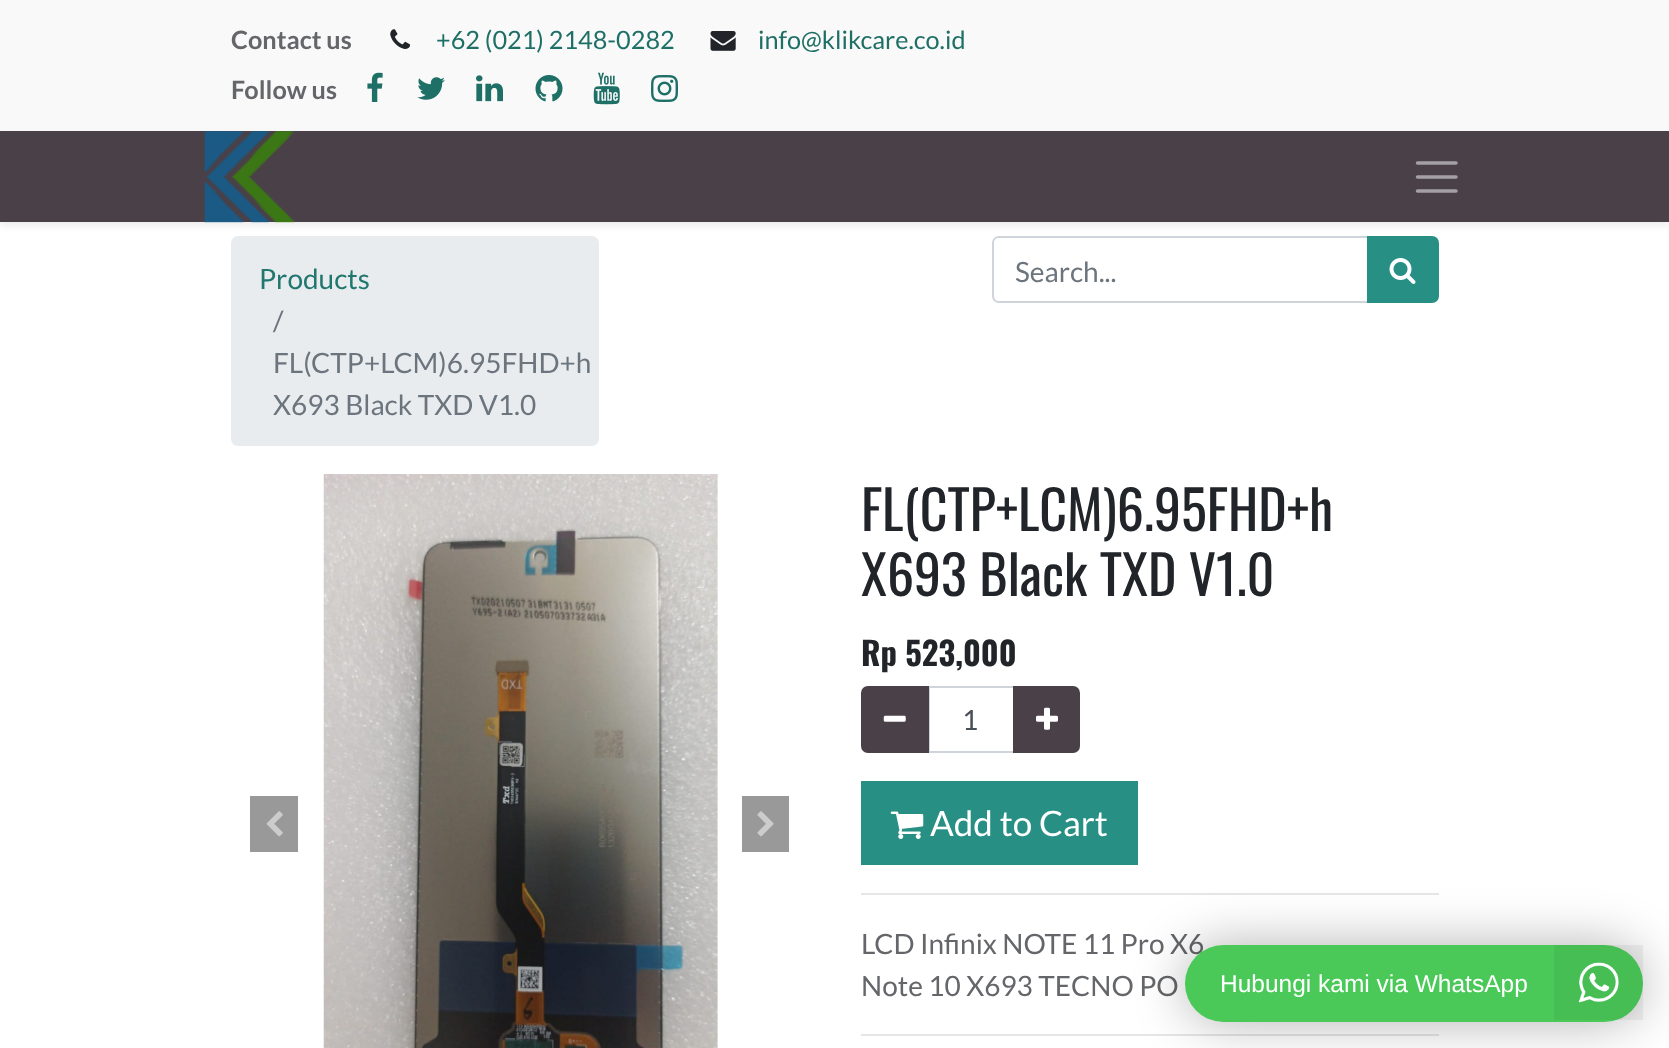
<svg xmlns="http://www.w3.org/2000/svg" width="1669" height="1048">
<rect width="100%" height="100%" fill="#fff"/>
<rect width="1669" height="131" fill="#f9f9f9"/>
<text x="231" y="49" style="font-family:Lato;font-size:25.25px;font-weight:bold;fill:#646669">Contact us</text>
<image x="390" y="29" width="20" height="20" href="media/1.png"/>
<text x="436" y="49" style="font-family:Lato;font-size:25.25px;fill:#1e6f66">+62 (021) 2148-0282</text>
<image x="710" y="31" width="26" height="20" href="media/2.png"/>
<text x="758" y="49" style="font-family:Lato;font-size:25.25px;fill:#1e6f66">info@klikcare.co.id</text>
<text x="231" y="99" style="font-family:Lato;font-size:25.25px;font-weight:bold;fill:#646669">Follow us</text>
<image x="367" y="72" width="16" height="30" href="media/3.png"/>
<image x="417" y="77" width="28" height="23" href="media/4.png"/>
<image x="476" y="75" width="27" height="27" href="media/5.png"/>
<image x="535" y="75" width="28" height="27" href="media/6.png"/>
<image x="593" y="72" width="27" height="33" href="media/7.png"/>
<image x="651" y="75" width="27" height="27" href="media/8.png"/>
<rect x="231" y="236" width="368" height="210" rx="7" fill="#e9ecef"/>
<path d="M999 237h369v65h-369c-3.5 0-6-2.5-6-6v-53c0-3.5 2.5-6 6-6z" fill="none" stroke="#ced4da" stroke-width="2"/>
<path d="M1368 237h64c3.5 0 6 2.5 6 6v53c0 3.5-2.5 6-6 6h-64z" fill="#278f84" stroke="#278f84" stroke-width="2"/>
<rect y="135" width="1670" height="91" fill="#00000012" filter="blur(3.5px)"/>
<rect y="131" width="1669" height="91" fill="#494048"/>
<image x="204" y="131" width="90" height="92" href="media/9.png"/>
<path d="M1417.5 163h38.5m-38.5 14h38.5m-38.5 14h38.5" fill="none" stroke="#a4a0a4" stroke-width="3.5" stroke-linecap="round"/>
<text x="259" y="289" style="font-family:Lato;font-size:28px;fill:#20776e">Products</text>
<text x="273" y="331" style="font-family:Lato;font-size:28px;fill:#6c757d">/</text>
<text x="273" y="373" style="font-family:Lato;font-size:28px;fill:#6c757d">FL(CTP+LCM)6.95FHD+h</text>
<text x="273" y="415" style="font-family:Lato;font-size:28px;fill:#6c757d">X693 Black TXD V1.0</text>
<text x="1015" y="282" style="font-family:Lato;font-size:28px;fill:#6c757d">Search...</text>
<image x="1389" y="258" width="27" height="26" href="media/10.png"/>
<rect x="250" y="796" width="48" height="56" fill="#999"/>
<image x="266" y="811" width="17" height="26" href="media/11.png"/>
<image x="323" y="474" width="395" height="574" href="media/12.png"/>
<rect x="742" y="796" width="47" height="56" fill="#999"/>
<image x="757" y="811" width="17" height="26" href="media/13.png"/>
<text x="861" y="531" style="font-family:Oswald;font-size:54px;fill:#212529">FL(CTP+LCM)6.95FHD+h</text>
<text x="861" y="596" style="font-family:Oswald;font-size:54px;fill:#212529">X693 Black TXD V1.0</text>
<text x="861" y="666" style="font-family:Oswald;font-size:32.5px;font-weight:bold;fill:#212529">Rp 523,000</text>
<rect x="929" y="687" width="85" height="65" fill="none" stroke="#ced4da" stroke-width="2"/>
<path d="M868 687h60v65h-60c-3.5 0-6-2.5-6-6v-53c0-3.5 2.5-6 6-6z" fill="#494048" stroke="#494048" stroke-width="2"/>
<image x="883" y="715" width="23" height="7" href="media/14.png"/>
<text x="962" y="730" style="font-family:Lato;font-size:28px;fill:#495057">1</text>
<path d="M1014 687h59c3.5 0 6 2.5 6 6v53c0 3.5-2.5 6-6 6h-59z" fill="#494048" stroke="#494048" stroke-width="2"/>
<image x="1036" y="707" width="22" height="23" href="media/15.png"/>
<rect x="861" y="781" width="277" height="84" fill="#278f84"/>
<image x="890" y="811" width="34" height="28" href="media/16.png"/>
<text x="930" y="836" style="font-family:Lato;font-size:35px;fill:#fff">Add to Cart</text>
<rect x="861" y="893" width="578" height="2" fill="#e6e6e6"/>
<text x="861" y="954" style="font-family:Lato;font-size:28px;fill:#646669">LCD Infinix NOTE 11 Pro X6</text>
<text x="861" y="996" style="font-family:Lato;font-size:28px;fill:#646669">Note 10 X693 TECNO PO</text>
<rect x="861" y="1034" width="578" height="2" fill="#e6e6e6"/>
<rect x="1185" y="945" width="458" height="77" rx="38.5" fill="#0000004d" filter="blur(26px)"/>
<rect x="1185" y="945" width="458" height="77" rx="38.5" fill="#4ac959"/>
<text x="1220" y="992" style="font-family:Liberation Sans;font-size:24.5px;fill:#fff">Hubungi kami via WhatsApp</text>
<rect x="1554" y="945" width="89" height="75" fill="#0000000d"/>
<image x="1578" y="962" width="41" height="41" href="media/17.png"/>
</svg>
